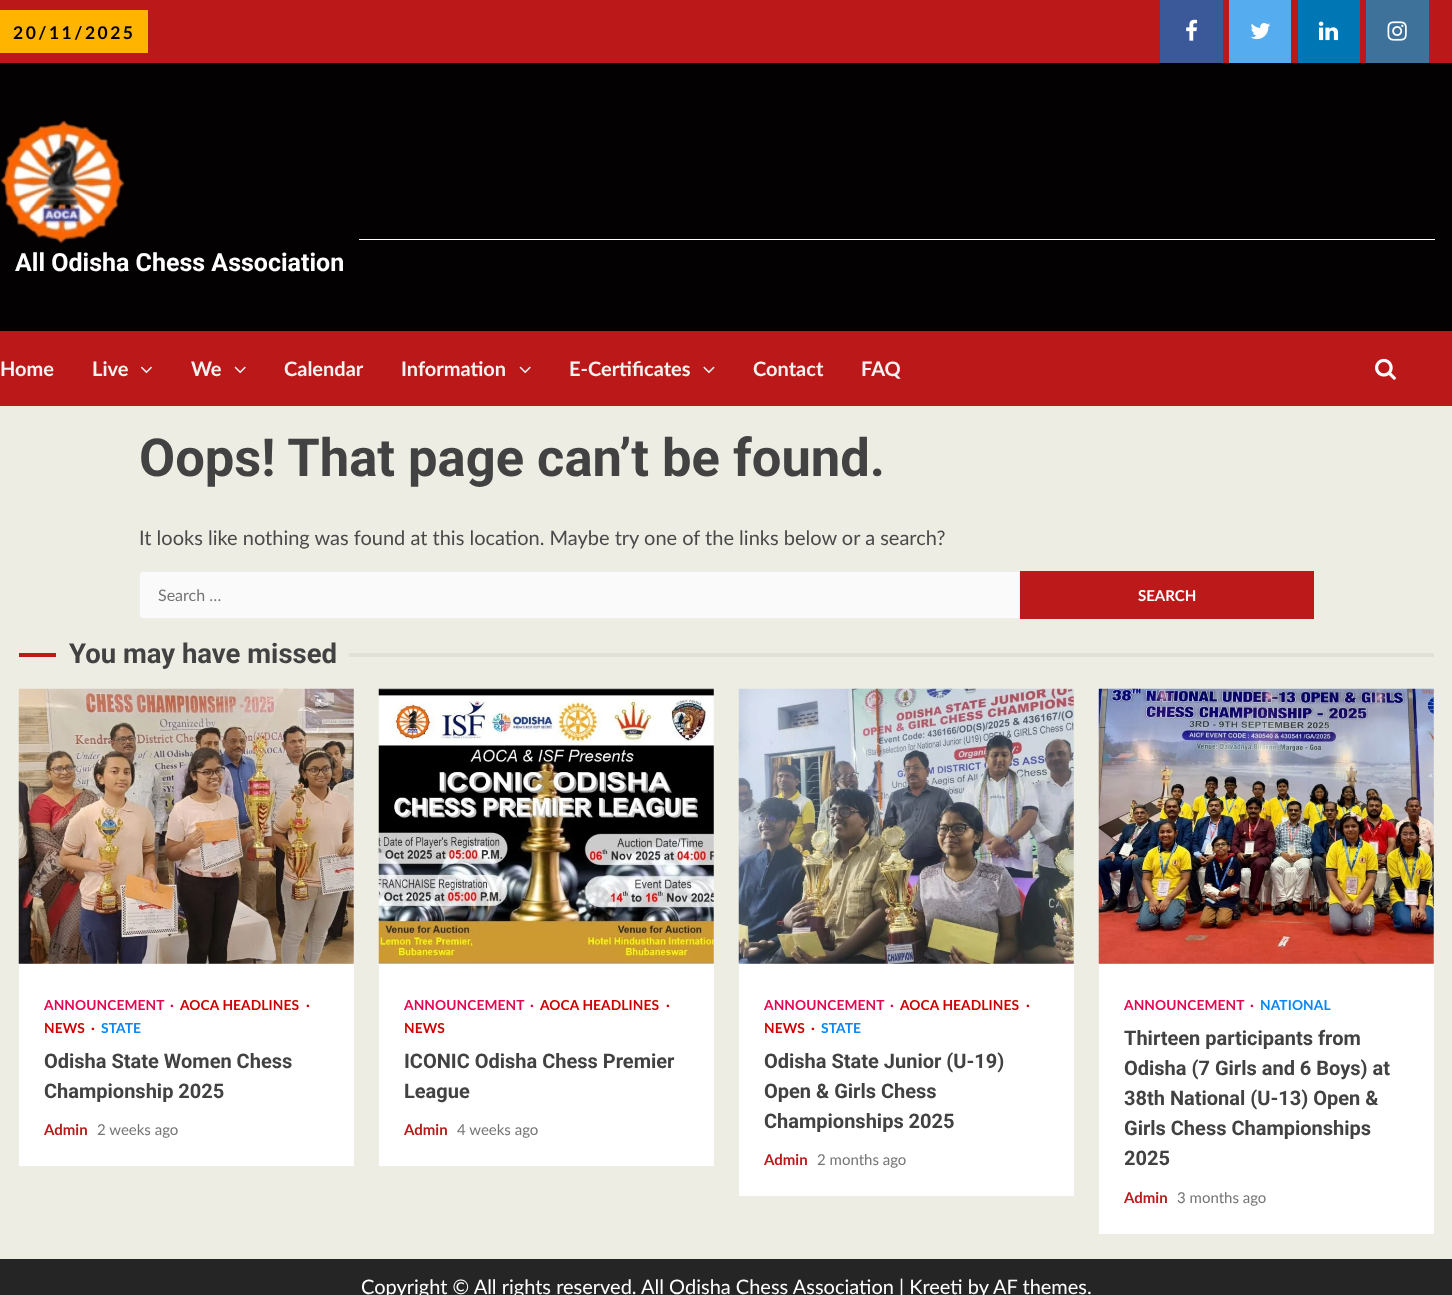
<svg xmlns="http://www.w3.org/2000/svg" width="1452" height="1295">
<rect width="100%" height="100%" fill="#edede3"/>
<rect width="1452" height="63" fill="#bb1919"/>
<rect y="10" width="148" height="43" fill="#ffb400"/>
<text x="13" y="39" style="font-family:Lato;font-size:17.5px;font-weight:bold;letter-spacing:2.5px;fill:#040000">20/11/2025</text>
<rect x="1160" width="63" height="63" fill="#3b5999"/>
<image x="1186" y="19" width="12" height="22" href="media/1.png"/>
<rect x="1229" width="62" height="63" fill="#55acee"/>
<image x="1250" y="23" width="21" height="17" href="media/2.png"/>
<rect x="1298" width="62" height="63" fill="#0077b5"/>
<image x="1318" y="21" width="21" height="20" href="media/3.png"/>
<rect x="1366" width="63" height="63" fill="#3f729b"/>
<image x="1387" y="21" width="20" height="20" href="media/4.png"/>
<rect y="63" width="1452" height="268" fill="#030101"/>
<rect x="359" y="239" width="1076" height="1" fill="#fffefe"/>
<image x="0" y="120" width="125" height="124" href="media/5.png"/>
<text x="15" y="271" style="font-family:Roboto;font-size:25px;font-weight:bold;fill:#fff">All Odisha Chess Association</text>
<rect y="331" width="1452" height="75" fill="#bb1919"/>
<text x="0" y="376" style="font-family:Lato;font-size:20px;font-weight:bold;fill:#f2f2f2">Home</text>
<text x="92" y="376" style="font-family:Lato;font-size:20px;font-weight:bold;fill:#f2f2f2">Live</text>
<image x="140" y="366" width="12" height="8" href="media/6.png"/>
<text x="191" y="376" style="font-family:Lato;font-size:20px;font-weight:bold;fill:#f2f2f2">We</text>
<image x="234" y="366" width="12" height="8" href="media/7.png"/>
<text x="284" y="376" style="font-family:Lato;font-size:20px;font-weight:bold;fill:#f2f2f2">Calendar</text>
<text x="401" y="376" style="font-family:Lato;font-size:20px;font-weight:bold;fill:#f2f2f2">Information</text>
<image x="519" y="366" width="12" height="8" href="media/7.png"/>
<text x="569" y="376" style="font-family:Lato;font-size:20px;font-weight:bold;fill:#f2f2f2">E-Certificates</text>
<image x="703" y="366" width="12" height="8" href="media/8.png"/>
<text x="753" y="376" style="font-family:Lato;font-size:20px;font-weight:bold;fill:#f2f2f2">Contact</text>
<text x="861" y="376" style="font-family:Lato;font-size:20px;font-weight:bold;fill:#f2f2f2">FAQ</text>
<image x="1375" y="358" width="21" height="22" href="media/9.png"/>
<text x="139" y="476" style="font-family:Roboto;font-size:52.5px;font-weight:bold;fill:#424242">Oops! That page can’t be found.</text>
<text x="139" y="545" style="font-family:Lato;font-size:20px;fill:#4a4a4a">It looks like nothing was found at this location. Maybe try one of the links below or a search?</text>
<path d="M143 571.5h876.5v47h-876.5c-2 0-3.5-1.5-3.5-3.5v-40c0-2 1.5-3.5 3.5-3.5z" fill="#fafafa" stroke="#eee"/>
<text x="158" y="601" style="font-family:Lato;font-size:16px;fill:#757575">Search …</text>
<rect x="1020" y="571" width="294" height="48" fill="#bb191a"/>
<text x="1138" y="601" style="font-family:Lato;font-size:15px;font-weight:bold;fill:#fff">SEARCH</text>
<rect x="19" y="653" width="37" height="4" fill="#bb191a"/>
<text x="69" y="663" style="font-family:Roboto;font-size:27.5px;font-weight:bold;fill:#424242">You may have missed</text>
<rect x="349" y="653" width="1085" height="4" fill="#e1e1d8"/>
<rect x="19" y="964" width="335" height="202" fill="#fff"/>
<rect x="19" y="689" width="335" height="275" fill="#eaeaea"/>
<image x="18" y="688" width="336" height="276" href="media/10.png"/>
<text x="44" y="1010" style="font-family:Lato;font-size:13.75px;font-weight:bold;letter-spacing:0.1px;fill:#e40752">ANNOUNCEMENT</text>
<text x="170" y="1010" style="font-family:Lato;font-size:13.75px;font-weight:bold;letter-spacing:0.1px;fill:#e40752">∙</text>
<text x="180" y="1010" style="font-family:Lato;font-size:13.75px;font-weight:bold;letter-spacing:0.1px;fill:#c00">AOCA HEADLINES</text>
<text x="306" y="1010" style="font-family:Lato;font-size:13.75px;font-weight:bold;letter-spacing:0.1px;fill:#c00">∙</text>
<text x="44" y="1033" style="font-family:Lato;font-size:13.75px;font-weight:bold;letter-spacing:0.1px;fill:#c00">NEWS</text>
<text x="91" y="1033" style="font-family:Lato;font-size:13.75px;font-weight:bold;letter-spacing:0.1px;fill:#c00">∙</text>
<text x="101" y="1033" style="font-family:Lato;font-size:13.75px;font-weight:bold;letter-spacing:0.1px;fill:#0987f5">STATE</text>
<text x="44" y="1068" style="font-family:Roboto;font-size:20px;font-weight:bold;fill:#424242">Odisha State Women Chess</text>
<text x="44" y="1098" style="font-family:Roboto;font-size:20px;font-weight:bold;fill:#424242">Championship 2025</text>
<text x="44" y="1135" style="font-family:Lato;font-size:15px;font-weight:bold;fill:#bb191a">Admin</text>
<text x="97" y="1135" style="font-family:Lato;font-size:15px;fill:#757575">2 weeks ago</text>
<rect x="379" y="964" width="335" height="202" fill="#fff"/>
<rect x="379" y="689" width="335" height="275" fill="#eaeaea"/>
<image x="378" y="688" width="336" height="276" href="media/11.png"/>
<text x="404" y="1010" style="font-family:Lato;font-size:13.75px;font-weight:bold;letter-spacing:0.1px;fill:#e40752">ANNOUNCEMENT</text>
<text x="530" y="1010" style="font-family:Lato;font-size:13.75px;font-weight:bold;letter-spacing:0.1px;fill:#e40752">∙</text>
<text x="540" y="1010" style="font-family:Lato;font-size:13.75px;font-weight:bold;letter-spacing:0.1px;fill:#c00">AOCA HEADLINES</text>
<text x="666" y="1010" style="font-family:Lato;font-size:13.75px;font-weight:bold;letter-spacing:0.1px;fill:#c00">∙</text>
<text x="404" y="1033" style="font-family:Lato;font-size:13.75px;font-weight:bold;letter-spacing:0.1px;fill:#c00">NEWS</text>
<text x="404" y="1068" style="font-family:Roboto;font-size:20px;font-weight:bold;fill:#424242">ICONIC Odisha Chess Premier</text>
<text x="404" y="1098" style="font-family:Roboto;font-size:20px;font-weight:bold;fill:#424242">League</text>
<text x="404" y="1135" style="font-family:Lato;font-size:15px;font-weight:bold;fill:#bb191a">Admin</text>
<text x="457" y="1135" style="font-family:Lato;font-size:15px;fill:#757575">4 weeks ago</text>
<rect x="739" y="964" width="335" height="232" fill="#fff"/>
<rect x="739" y="689" width="335" height="275" fill="#eaeaea"/>
<image x="738" y="688" width="336" height="276" href="media/12.png"/>
<text x="764" y="1010" style="font-family:Lato;font-size:13.75px;font-weight:bold;letter-spacing:0.1px;fill:#e40752">ANNOUNCEMENT</text>
<text x="890" y="1010" style="font-family:Lato;font-size:13.75px;font-weight:bold;letter-spacing:0.1px;fill:#e40752">∙</text>
<text x="900" y="1010" style="font-family:Lato;font-size:13.75px;font-weight:bold;letter-spacing:0.1px;fill:#c00">AOCA HEADLINES</text>
<text x="1026" y="1010" style="font-family:Lato;font-size:13.75px;font-weight:bold;letter-spacing:0.1px;fill:#c00">∙</text>
<text x="764" y="1033" style="font-family:Lato;font-size:13.75px;font-weight:bold;letter-spacing:0.1px;fill:#c00">NEWS</text>
<text x="811" y="1033" style="font-family:Lato;font-size:13.75px;font-weight:bold;letter-spacing:0.1px;fill:#c00">∙</text>
<text x="821" y="1033" style="font-family:Lato;font-size:13.75px;font-weight:bold;letter-spacing:0.1px;fill:#0987f5">STATE</text>
<text x="764" y="1068" style="font-family:Roboto;font-size:20px;font-weight:bold;fill:#424242">Odisha State Junior (U-19)</text>
<text x="764" y="1098" style="font-family:Roboto;font-size:20px;font-weight:bold;fill:#424242">Open &amp; Girls Chess</text>
<text x="764" y="1128" style="font-family:Roboto;font-size:20px;font-weight:bold;fill:#424242">Championships 2025</text>
<text x="764" y="1165" style="font-family:Lato;font-size:15px;font-weight:bold;fill:#bb191a">Admin</text>
<text x="817" y="1165" style="font-family:Lato;font-size:15px;fill:#757575">2 months ago</text>
<rect x="1099" y="964" width="335" height="270" fill="#fff"/>
<rect x="1099" y="689" width="335" height="275" fill="#eaeaea"/>
<image x="1098" y="688" width="336" height="276" href="media/13.png"/>
<text x="1124" y="1010" style="font-family:Lato;font-size:13.75px;font-weight:bold;letter-spacing:0.1px;fill:#e40752">ANNOUNCEMENT</text>
<text x="1250" y="1010" style="font-family:Lato;font-size:13.75px;font-weight:bold;letter-spacing:0.1px;fill:#e40752">∙</text>
<text x="1260" y="1010" style="font-family:Lato;font-size:13.75px;font-weight:bold;letter-spacing:0.1px;fill:#0987f5">NATIONAL</text>
<text x="1124" y="1045" style="font-family:Roboto;font-size:20px;font-weight:bold;fill:#424242">Thirteen participants from</text>
<text x="1124" y="1075" style="font-family:Roboto;font-size:20px;font-weight:bold;fill:#424242">Odisha (7 Girls and 6 Boys) at</text>
<text x="1124" y="1105" style="font-family:Roboto;font-size:20px;font-weight:bold;fill:#424242">38th National (U-13) Open &amp;</text>
<text x="1124" y="1135" style="font-family:Roboto;font-size:20px;font-weight:bold;fill:#424242">Girls Chess Championships</text>
<text x="1124" y="1165" style="font-family:Roboto;font-size:20px;font-weight:bold;fill:#424242">2025</text>
<text x="1124" y="1203" style="font-family:Lato;font-size:15px;font-weight:bold;fill:#bb191a">Admin</text>
<text x="1177" y="1203" style="font-family:Lato;font-size:15px;fill:#757575">3 months ago</text>
<rect y="1259" width="1452" height="36" fill="#252525"/>
<text x="361" y="1294" style="font-family:Lato;font-size:20px;fill:#fff">Copyright © All rights reserved. All Odisha Chess Association | Kreeti by AF themes.</text>
</svg>
